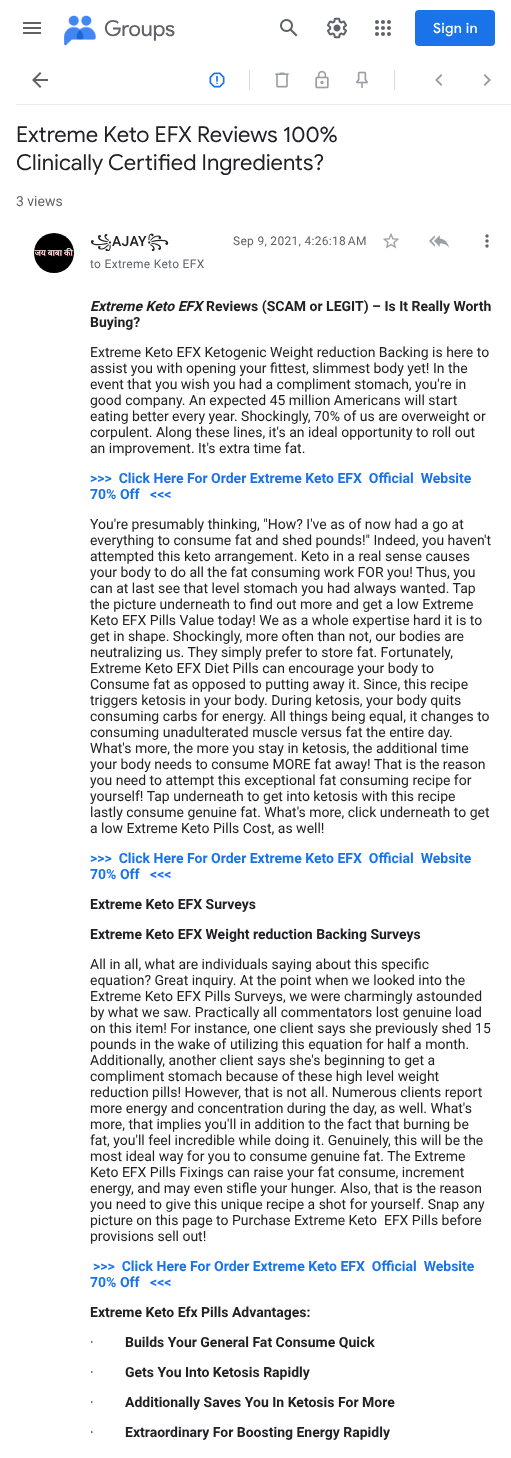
<svg xmlns="http://www.w3.org/2000/svg" width="511" height="1458">
<defs>
<clipPath id="clip1"><rect x="90" y="231" width="95" height="20"/></clipPath>
</defs>
<rect width="100%" height="100%" fill="#fff"/>
<image x="23" y="22" width="18" height="12" href="media/1.png"/>
<image x="64" y="15" width="32" height="31" href="media/2.png"/>
<text x="104" y="36" style="font-family:Product Sans;font-size:22px;fill:#5f6368">Groups</text>
<image x="280" y="19" width="18" height="18" href="media/3.png"/>
<image x="327" y="17" width="20" height="22" href="media/4.png"/>
<image x="375" y="20" width="16" height="16" href="media/5.png"/>
<rect x="415" y="10" width="80" height="36" rx="4" fill="#1a73e8"/>
<text x="433" y="33" style="font-family:Google Sans;font-size:14px;font-weight:500;letter-spacing:0.25px;fill:#fff">Sign in</text>
<rect x="16" y="104" width="495" height="1" fill="#e8eaed"/>
<image x="32" y="72" width="16" height="16" href="media/6.png"/>
<image x="209" y="72" width="16" height="16" href="media/7.png"/>
<rect x="249" y="70" width="1" height="20" fill="#ddd"/>
<image x="275" y="72" width="14" height="16" href="media/8.png"/>
<image x="315" y="70" width="14" height="19" href="media/9.png"/>
<image x="356" y="71" width="12" height="18" href="media/10.png"/>
<rect x="394" y="70" width="1" height="20" fill="#ddd"/>
<image x="435" y="74" width="8" height="12" href="media/11.png"/>
<image x="483" y="74" width="8" height="12" href="media/12.png"/>
<text x="16" y="142" style="font-family:Google Sans;font-size:22px;fill:#202124">Extreme Keto EFX Reviews 100%</text>
<text x="16" y="170" style="font-family:Google Sans;font-size:22px;fill:#202124">Clinically Certified Ingredients?</text>
<text x="16" y="206" style="font-family:Roboto;font-size:14px;fill:#5f6368">3 views</text>
<image x="34" y="233" width="40" height="40" href="media/13.png"/>
<g clip-path="url(#clip1)">
<text x="90" y="246" style="font-family:Noto Sans Javanese;font-size:14px;font-weight:500;letter-spacing:0.25px;fill:#202124">꧁</text>
</g>
<text x="112" y="246" style="font-family:Roboto;font-size:14px;font-weight:500;letter-spacing:0.25px;fill:#202124">AJAY</text>
<text x="147" y="246" style="font-family:Noto Sans Javanese;font-size:14px;font-weight:500;letter-spacing:0.25px;fill:#202124">꧂</text>
<text x="233" y="245" style="font-family:Roboto;font-size:12px;letter-spacing:0.3px;fill:#5f6368">Sep 9, 2021, 4:26:18 AM</text>
<image x="382" y="233" width="18" height="16" href="media/14.png"/>
<image x="429" y="235" width="20" height="13" href="media/15.png"/>
<image x="485" y="234" width="4" height="14" href="media/16.png"/>
<text x="90" y="268" style="font-family:Roboto;font-size:12px;letter-spacing:0.3px;fill:#5f6368">to Extreme Keto EFX</text>
<text x="90" y="311" style="font-family:Roboto;font-size:14px;font-weight:bold;font-style:italic;fill:#202124">Extreme Keto EFX</text>
<text x="206" y="311" style="font-family:Roboto;font-size:14px;font-weight:bold;fill:#202124">Reviews (SCAM or LEGIT) – Is It Really Worth</text>
<text x="90" y="327" style="font-family:Roboto;font-size:14px;font-weight:bold;fill:#202124">Buying?</text>
<text x="90" y="357" style="font-family:Roboto;font-size:14px;fill:#202124">Extreme Keto EFX Ketogenic Weight reduction Backing is here to</text>
<text x="90" y="373" style="font-family:Roboto;font-size:14px;fill:#202124">assist you with opening your fittest, slimmest body yet! In the</text>
<text x="90" y="389" style="font-family:Roboto;font-size:14px;fill:#202124">event that you wish you had a compliment stomach, you're in</text>
<text x="90" y="405" style="font-family:Roboto;font-size:14px;fill:#202124">good company. An expected 45 million Americans will start</text>
<text x="90" y="421" style="font-family:Roboto;font-size:14px;fill:#202124">eating better every year. Shockingly, 70% of us are overweight or</text>
<text x="90" y="437" style="font-family:Roboto;font-size:14px;fill:#202124">corpulent. Along these lines, it's an ideal opportunity to roll out</text>
<text x="90" y="453" style="font-family:Roboto;font-size:14px;fill:#202124">an improvement. It's extra time fat.</text>
<text x="90" y="483" style="font-family:Roboto;font-size:14px;font-weight:bold;fill:#1a73e8" xml:space="preserve">&gt;&gt;&gt;  Click Here For Order Extreme Keto EFX  Official  Website</text>
<text x="90" y="499" style="font-family:Roboto;font-size:14px;font-weight:bold;fill:#1a73e8" xml:space="preserve">70% Off   &lt;&lt;&lt;</text>
<text x="90" y="529" style="font-family:Roboto;font-size:14px;fill:#202124">You're presumably thinking, "How? I've as of now had a go at</text>
<text x="90" y="545" style="font-family:Roboto;font-size:14px;fill:#202124">everything to consume fat and shed pounds!" Indeed, you haven't</text>
<text x="90" y="561" style="font-family:Roboto;font-size:14px;fill:#202124">attempted this keto arrangement. Keto in a real sense causes</text>
<text x="90" y="577" style="font-family:Roboto;font-size:14px;fill:#202124">your body to do all the fat consuming work FOR you! Thus, you</text>
<text x="90" y="593" style="font-family:Roboto;font-size:14px;fill:#202124">can at last see that level stomach you had always wanted. Tap</text>
<text x="90" y="609" style="font-family:Roboto;font-size:14px;fill:#202124">the picture underneath to find out more and get a low Extreme</text>
<text x="90" y="625" style="font-family:Roboto;font-size:14px;fill:#202124">Keto EFX Pills Value today! We as a whole expertise hard it is to</text>
<text x="90" y="641" style="font-family:Roboto;font-size:14px;fill:#202124">get in shape. Shockingly, more often than not, our bodies are</text>
<text x="90" y="657" style="font-family:Roboto;font-size:14px;fill:#202124">neutralizing us. They simply prefer to store fat. Fortunately,</text>
<text x="90" y="673" style="font-family:Roboto;font-size:14px;fill:#202124">Extreme Keto EFX Diet Pills can encourage your body to</text>
<text x="90" y="689" style="font-family:Roboto;font-size:14px;fill:#202124">Consume fat as opposed to putting away it. Since, this recipe</text>
<text x="90" y="705" style="font-family:Roboto;font-size:14px;fill:#202124">triggers ketosis in your body. During ketosis, your body quits</text>
<text x="90" y="721" style="font-family:Roboto;font-size:14px;fill:#202124">consuming carbs for energy. All things being equal, it changes to</text>
<text x="90" y="737" style="font-family:Roboto;font-size:14px;fill:#202124">consuming unadulterated muscle versus fat the entire day.</text>
<text x="90" y="753" style="font-family:Roboto;font-size:14px;fill:#202124">What's more, the more you stay in ketosis, the additional time</text>
<text x="90" y="769" style="font-family:Roboto;font-size:14px;fill:#202124">your body needs to consume MORE fat away! That is the reason</text>
<text x="90" y="785" style="font-family:Roboto;font-size:14px;fill:#202124">you need to attempt this exceptional fat consuming recipe for</text>
<text x="90" y="801" style="font-family:Roboto;font-size:14px;fill:#202124">yourself! Tap underneath to get into ketosis with this recipe</text>
<text x="90" y="817" style="font-family:Roboto;font-size:14px;fill:#202124">lastly consume genuine fat. What's more, click underneath to get</text>
<text x="90" y="833" style="font-family:Roboto;font-size:14px;fill:#202124">a low Extreme Keto Pills Cost, as well!</text>
<text x="90" y="863" style="font-family:Roboto;font-size:14px;font-weight:bold;fill:#1a73e8" xml:space="preserve">&gt;&gt;&gt;  Click Here For Order Extreme Keto EFX  Official  Website</text>
<text x="90" y="879" style="font-family:Roboto;font-size:14px;font-weight:bold;fill:#1a73e8" xml:space="preserve">70% Off   &lt;&lt;&lt;</text>
<text x="90" y="909" style="font-family:Roboto;font-size:14px;font-weight:bold;fill:#202124">Extreme Keto EFX Surveys</text>
<text x="90" y="939" style="font-family:Roboto;font-size:14px;font-weight:bold;fill:#202124">Extreme Keto EFX Weight reduction Backing Surveys</text>
<text x="90" y="969" style="font-family:Roboto;font-size:14px;fill:#202124">All in all, what are individuals saying about this specific</text>
<text x="90" y="985" style="font-family:Roboto;font-size:14px;fill:#202124">equation? Great inquiry. At the point when we looked into the</text>
<text x="90" y="1001" style="font-family:Roboto;font-size:14px;fill:#202124">Extreme Keto EFX Pills Surveys, we were charmingly astounded</text>
<text x="90" y="1017" style="font-family:Roboto;font-size:14px;fill:#202124">by what we saw. Practically all commentators lost genuine load</text>
<text x="90" y="1033" style="font-family:Roboto;font-size:14px;fill:#202124">on this item! For instance, one client says she previously shed 15</text>
<text x="90" y="1049" style="font-family:Roboto;font-size:14px;fill:#202124">pounds in the wake of utilizing this equation for half a month.</text>
<text x="90" y="1065" style="font-family:Roboto;font-size:14px;fill:#202124">Additionally, another client says she's beginning to get a</text>
<text x="90" y="1081" style="font-family:Roboto;font-size:14px;fill:#202124">compliment stomach because of these high level weight</text>
<text x="90" y="1097" style="font-family:Roboto;font-size:14px;fill:#202124">reduction pills! However, that is not all. Numerous clients report</text>
<text x="90" y="1113" style="font-family:Roboto;font-size:14px;fill:#202124">more energy and concentration during the day, as well. What's</text>
<text x="90" y="1129" style="font-family:Roboto;font-size:14px;fill:#202124">more, that implies you'll in addition to the fact that burning be</text>
<text x="90" y="1145" style="font-family:Roboto;font-size:14px;fill:#202124">fat, you'll feel incredible while doing it. Genuinely, this will be the</text>
<text x="90" y="1161" style="font-family:Roboto;font-size:14px;fill:#202124">most ideal way for you to consume genuine fat. The Extreme</text>
<text x="90" y="1177" style="font-family:Roboto;font-size:14px;fill:#202124">Keto EFX Pills Fixings can raise your fat consume, increment</text>
<text x="90" y="1193" style="font-family:Roboto;font-size:14px;fill:#202124">energy, and may even stifle your hunger. Also, that is the reason</text>
<text x="90" y="1209" style="font-family:Roboto;font-size:14px;fill:#202124">you need to give this unique recipe a shot for yourself. Snap any</text>
<text x="90" y="1225" style="font-family:Roboto;font-size:14px;fill:#202124" xml:space="preserve">picture on this page to Purchase Extreme Keto  EFX Pills before</text>
<text x="90" y="1241" style="font-family:Roboto;font-size:14px;fill:#202124">provisions sell out!</text>
<text x="93" y="1271" style="font-family:Roboto;font-size:14px;font-weight:bold;fill:#1a73e8" xml:space="preserve">&gt;&gt;&gt;  Click Here For Order Extreme Keto EFX  Official  Website</text>
<text x="90" y="1287" style="font-family:Roboto;font-size:14px;font-weight:bold;fill:#1a73e8" xml:space="preserve">70% Off   &lt;&lt;&lt;</text>
<text x="90" y="1317" style="font-family:Roboto;font-size:14px;font-weight:bold;fill:#202124">Extreme Keto Efx Pills Advantages:</text>
<text x="90" y="1347" style="font-family:Roboto;font-size:14px;fill:#202124">·</text>
<text x="125" y="1347" style="font-family:Roboto;font-size:14px;font-weight:bold;fill:#202124">Builds Your General Fat Consume Quick</text>
<text x="90" y="1377" style="font-family:Roboto;font-size:14px;fill:#202124">·</text>
<text x="125" y="1377" style="font-family:Roboto;font-size:14px;font-weight:bold;fill:#202124">Gets You Into Ketosis Rapidly</text>
<text x="90" y="1407" style="font-family:Roboto;font-size:14px;fill:#202124">·</text>
<text x="125" y="1407" style="font-family:Roboto;font-size:14px;font-weight:bold;fill:#202124">Additionally Saves You In Ketosis For More</text>
<text x="90" y="1437" style="font-family:Roboto;font-size:14px;fill:#202124">·</text>
<text x="125" y="1437" style="font-family:Roboto;font-size:14px;font-weight:bold;fill:#202124">Extraordinary For Boosting Energy Rapidly</text>
</svg>
